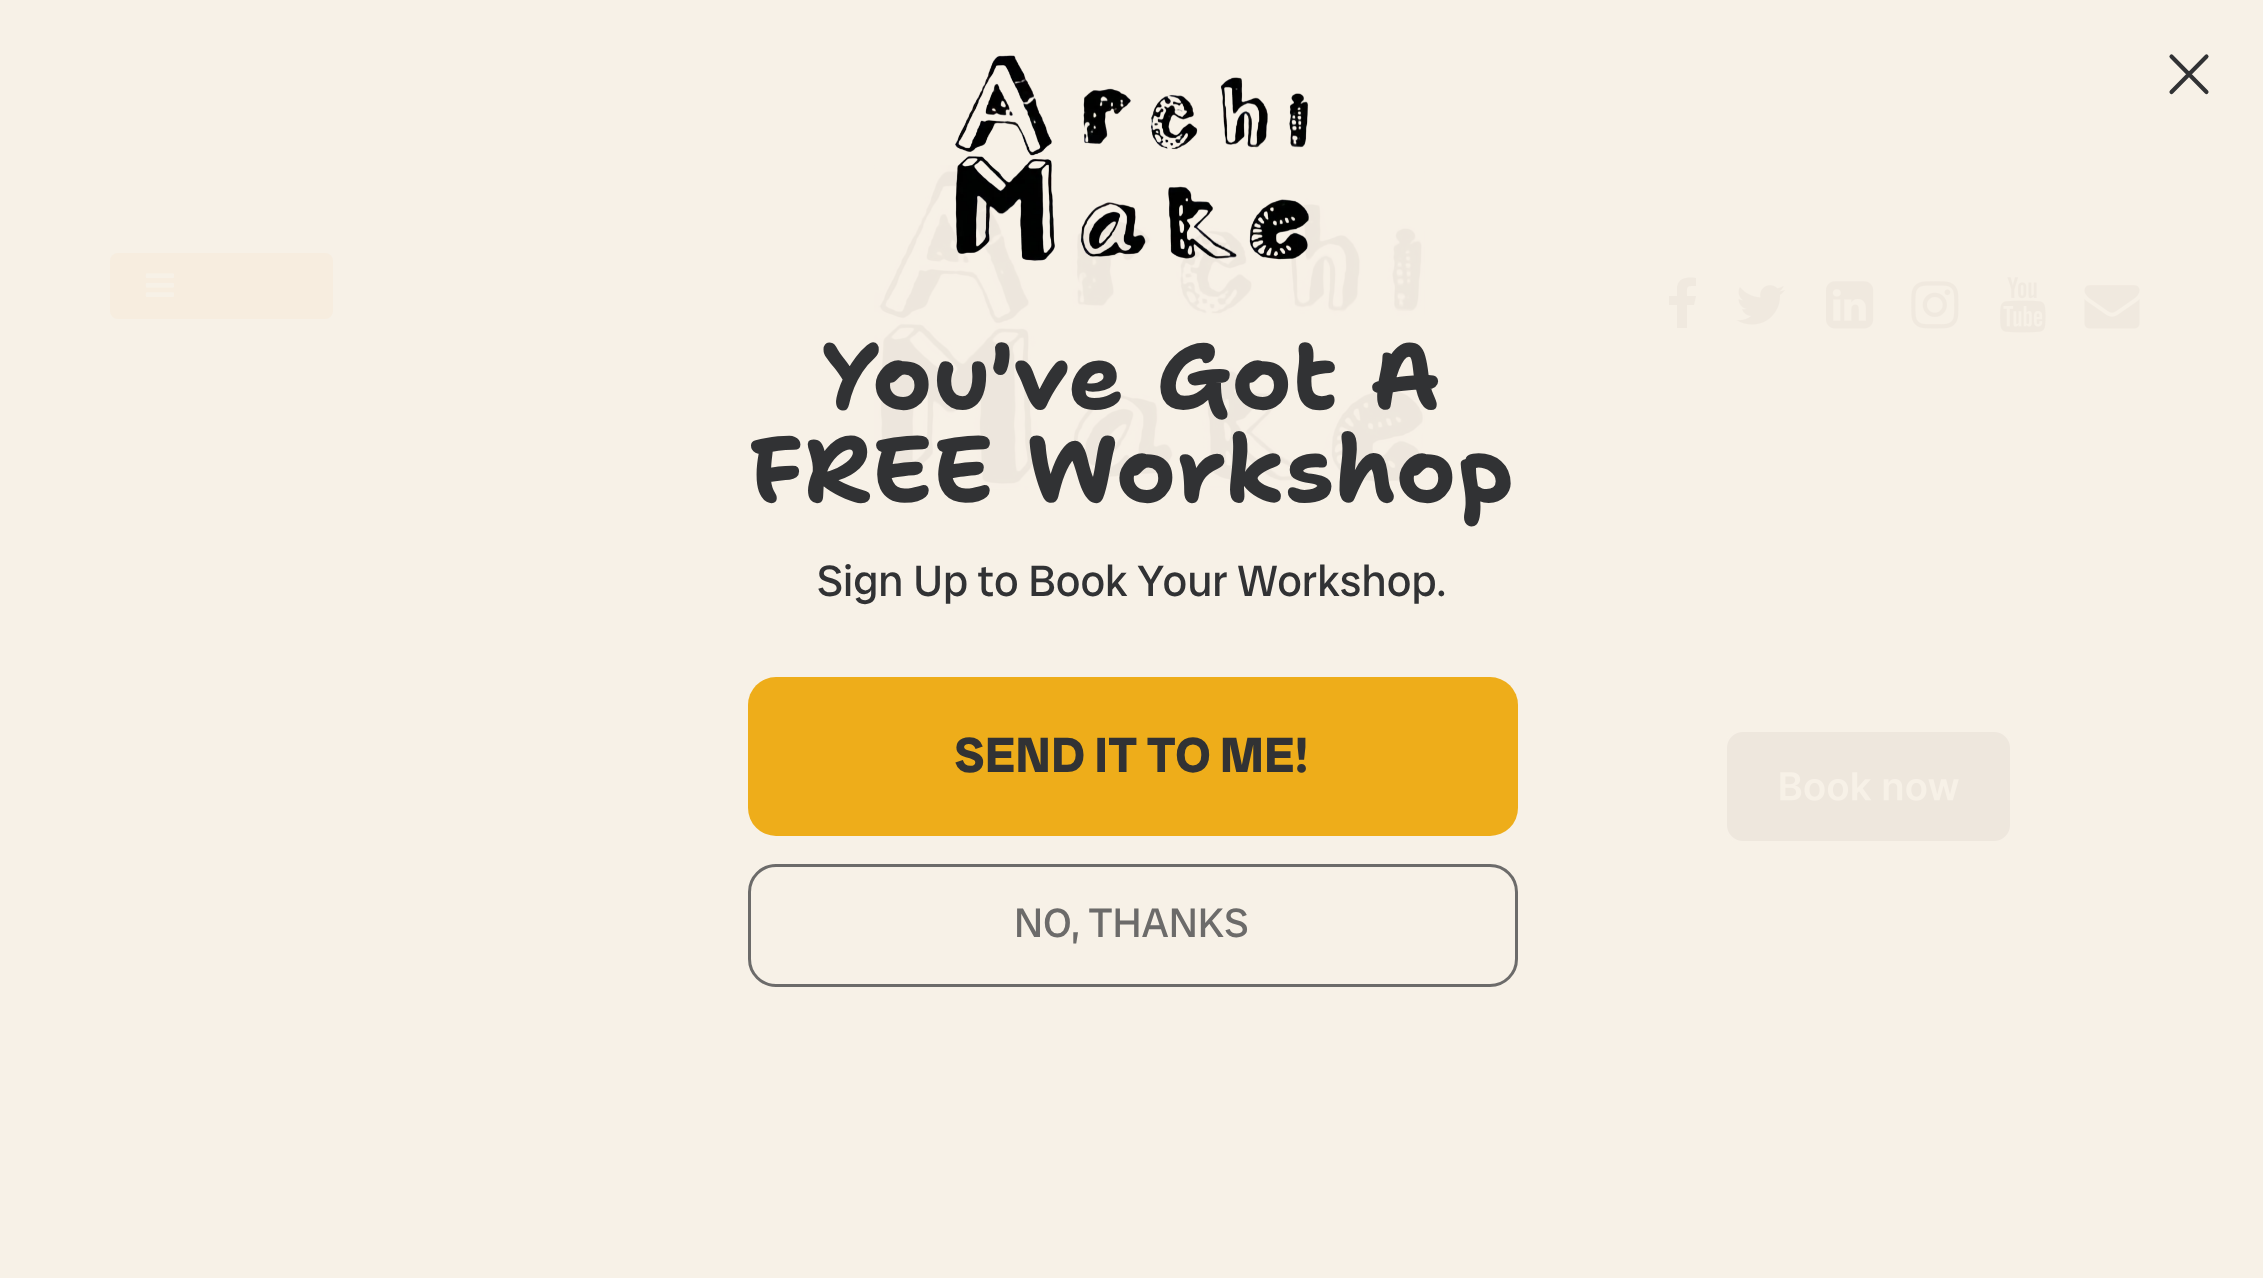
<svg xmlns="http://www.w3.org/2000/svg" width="2263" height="1278">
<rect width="100%" height="100%" fill="#f7f1e7"/>
<rect x="110" y="253" width="223" height="66" rx="8" fill="#f7eddf"/>
<image x="145" y="273" width="30" height="24" href="media/1.png"/>
<image x="874" y="165" width="551" height="325" href="media/2.png"/>
<path d="M1696 278v8c-10 0-9 0-9 10h9l-2 9h-7v23h-10v-23h-8v-9h8v-9c2-10 11-10 19-9z" fill="#f0e9df"/>
<image x="1736" y="285" width="49" height="40" href="media/3.png"/>
<image x="1826" y="281" width="48" height="48" href="media/4.png"/>
<image x="1911" y="281" width="48" height="48" href="media/5.png"/>
<image x="2000" y="277" width="46" height="56" href="media/6.png"/>
<image x="2084" y="285" width="56" height="44" href="media/7.png"/>
<image x="1727" y="732" width="283" height="109" href="media/8.png"/>
<path d="M2171.5 56.5l35 35.5m0-35.5l-35 35.5" fill="none" stroke="#313234" stroke-width="4.1" stroke-linecap="round"/>
<image x="955" y="55" width="354" height="206" href="media/9.png"/>
<text x="822" y="409" style="font-family:Shantell Sans;font-size:93.5px;font-weight:300;fill:#313234">You've Got A</text>
<text x="749" y="502" style="font-family:Shantell Sans;font-size:93.5px;font-weight:300;fill:#313234">FREE Workshop</text>
<text x="817" y="596" style="font-family:Radio Canada Big;font-size:44px;fill:#313234">Sign Up to Book Your Workshop.</text>
<rect x="748" y="677" width="770" height="159" rx="28" fill="#eead1a"/>
<text x="954" y="772" style="font-family:Radio Canada Big;font-size:49.5px;font-weight:bold;fill:#313234">SEND IT TO ME!</text>
<rect x="749.5" y="865.5" width="767" height="120" rx="26.5" fill="none" stroke="#313234b3" stroke-width="3"/>
<text x="1014" y="937" style="font-family:Radio Canada Big;font-size:41.25px;fill:#6c6b6a">NO, THANKS</text>
</svg>
